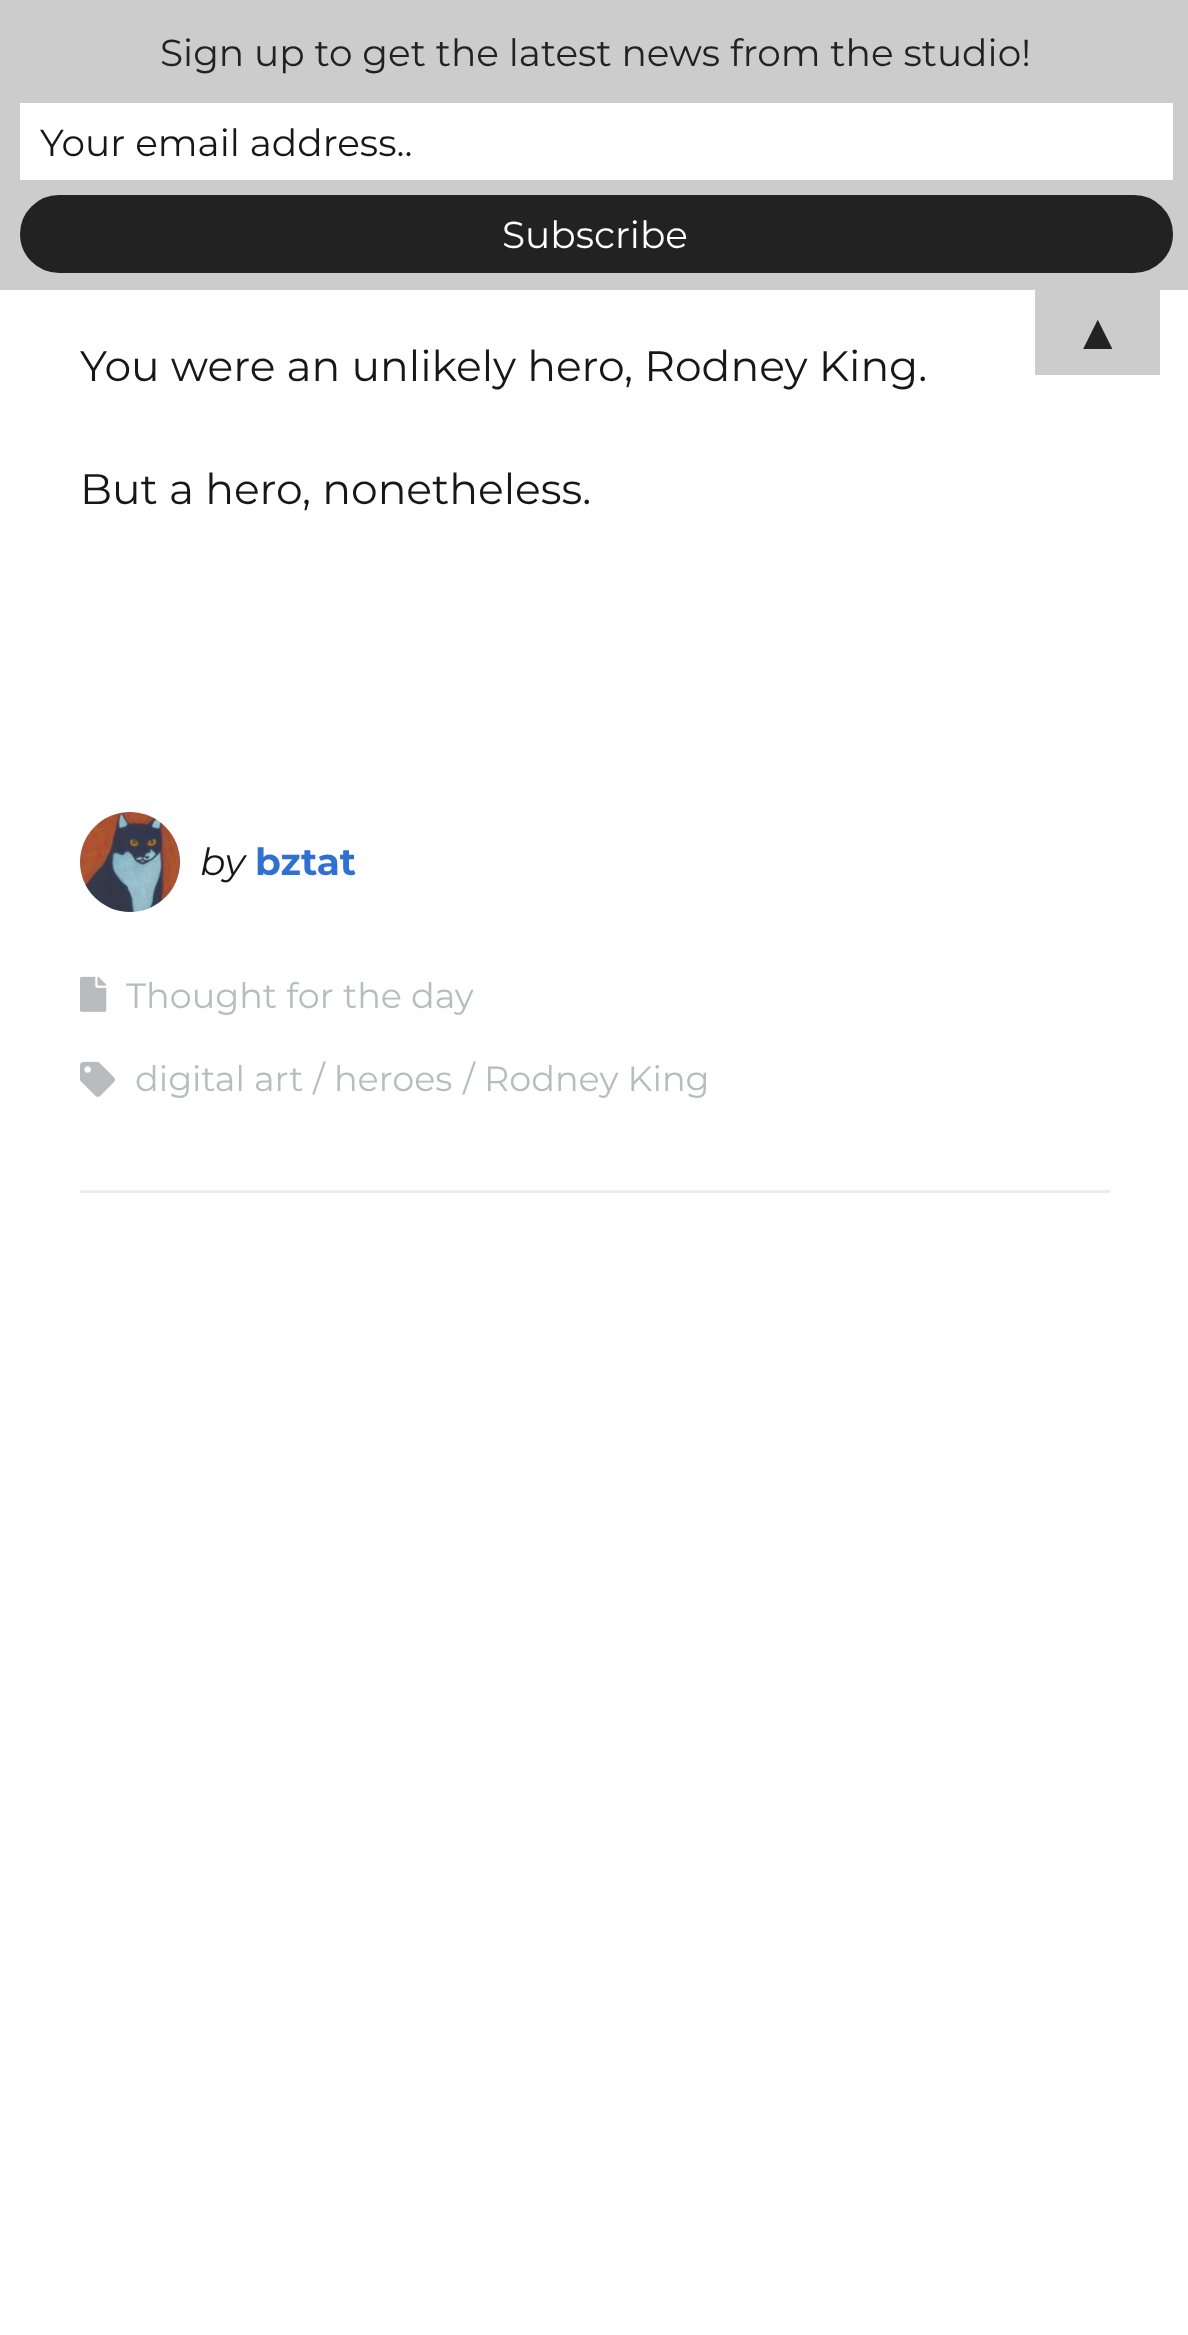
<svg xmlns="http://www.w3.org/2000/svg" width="1188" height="2335">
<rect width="100%" height="100%" fill="#fff"/>
<rect width="1188" height="290" fill="#ccc"/>
<text x="160" y="66" style="font-family:Montserrat;font-size:37.5px;fill:#222">Sign up to get the latest news from the studio!</text>
<rect x="20" y="103" width="1153" height="77" fill="#fff"/>
<text x="40" y="156" style="font-family:Montserrat;font-size:37.5px;fill:#171717">Your email address..</text>
<rect x="21.5" y="196.5" width="1150" height="75" rx="37.5" fill="#222" stroke="#222" stroke-width="3"/>
<text x="502" y="248" style="font-family:Montserrat;font-size:37.5px;fill:#fff">Subscribe</text>
<rect x="1035" y="290" width="125" height="85" fill="#ccc"/>
<text x="1073" y="349" style="font-family:Liberation Sans;font-size:50px;fill:#222">▲</text>
<rect x="80" y="1190" width="1030" height="3" fill="#eaecee"/>
<text x="80" y="381" style="font-family:Montserrat;font-size:42.5px;fill:#171717">You were an unlikely hero, Rodney King.</text>
<text x="80" y="504" style="font-family:Montserrat;font-size:42.5px;fill:#171717">But a hero, nonetheless.</text>
<image x="80" y="812" width="100" height="100" href="media/1.png"/>
<text x="200" y="875" style="font-family:Montserrat;font-size:37.5px;font-weight:100;font-style:italic;fill:#171717">by</text>
<text x="255" y="875" style="font-family:Montserrat;font-size:37.5px;font-weight:bold;fill:#3070d1">bztat</text>
<image x="80" y="976" width="27" height="36" href="media/2.png"/>
<text x="126" y="1008" style="font-family:Montserrat;font-size:35px;fill:#b9bcbf">Thought for the day</text>
<image x="80" y="1061" width="35" height="36" href="media/3.png"/>
<text x="135" y="1091" style="font-family:Montserrat;font-size:35px;fill:#b9bcbf">digital art</text>
<text x="313" y="1091" style="font-family:Montserrat;font-size:35px;fill:#b9bcbf">/ heroes</text>
<text x="463" y="1091" style="font-family:Montserrat;font-size:35px;fill:#b9bcbf">/ Rodney King</text>
</svg>
